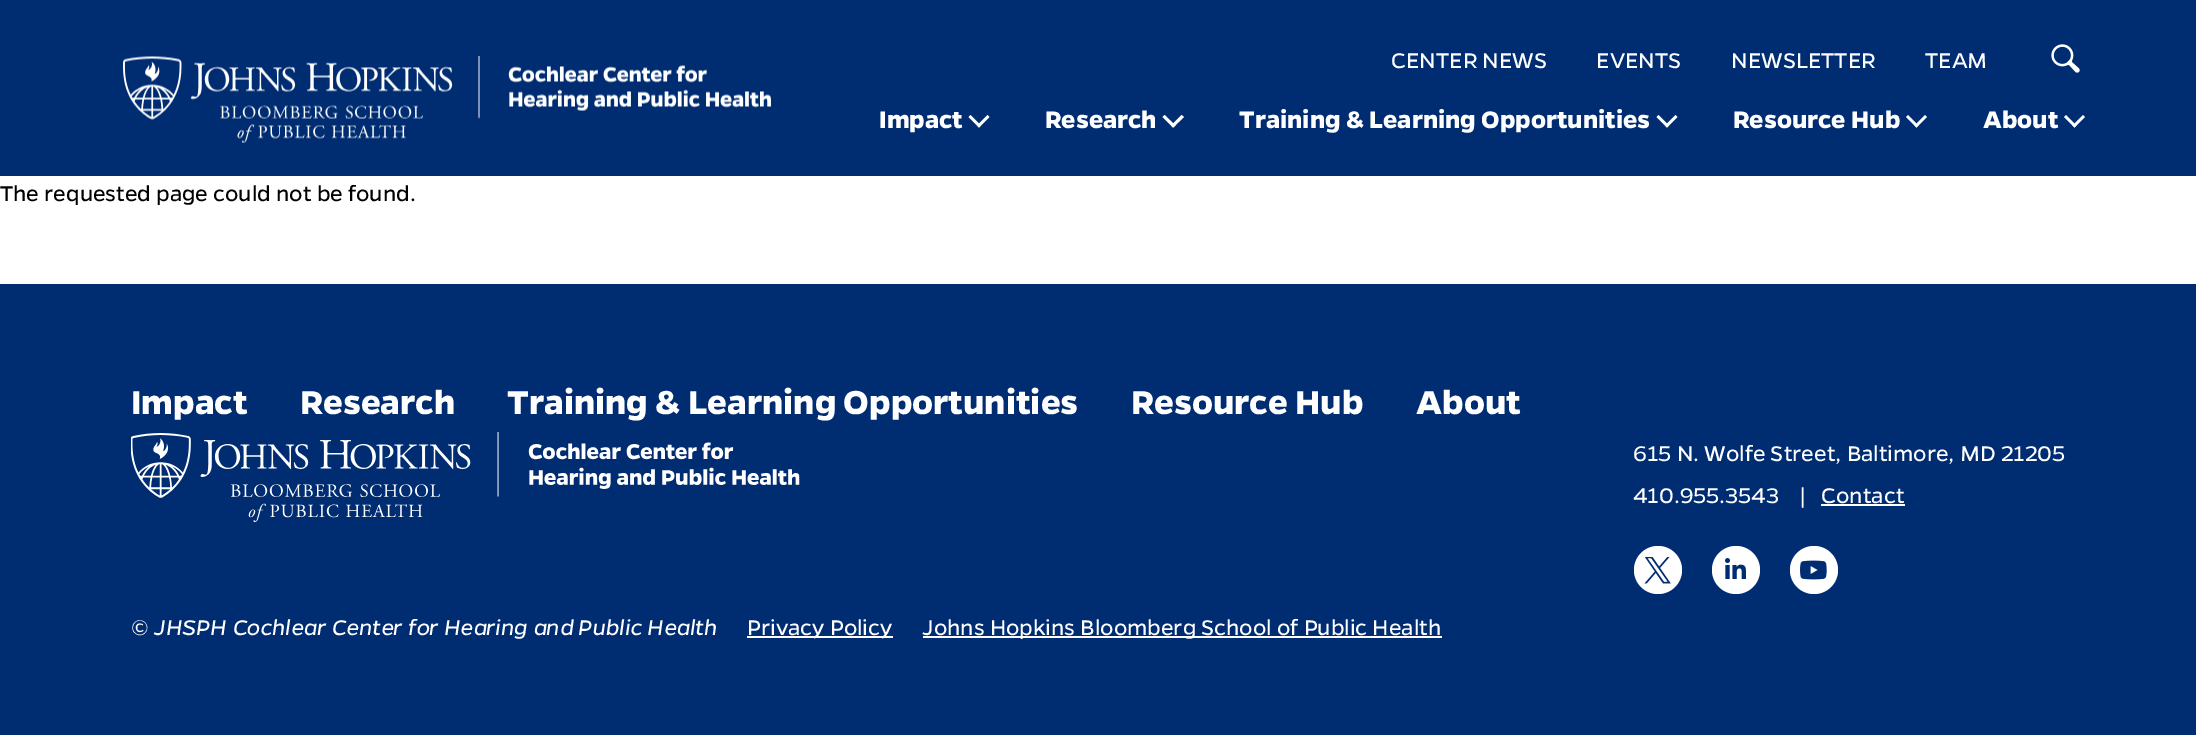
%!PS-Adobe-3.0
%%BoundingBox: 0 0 2196 735
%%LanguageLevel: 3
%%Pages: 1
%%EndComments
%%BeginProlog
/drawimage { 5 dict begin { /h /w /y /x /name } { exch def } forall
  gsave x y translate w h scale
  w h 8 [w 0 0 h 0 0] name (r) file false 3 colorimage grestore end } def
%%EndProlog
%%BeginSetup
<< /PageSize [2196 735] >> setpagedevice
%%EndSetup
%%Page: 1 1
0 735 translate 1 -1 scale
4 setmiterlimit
1 setgray
0 0 2196 735 rectfill
0 0.176 0.447 setrgbcolor
0 0 2196 176 rectfill
(images/1.raw) 123 56 648 87 drawimage
(images/2.raw) 2051 44 29 29 drawimage
1 setgray
newpath 987.5 115 moveto 989.5 117 lineto 979 127.5 lineto 977 125.5 lineto closepath fill
newpath 970.5 115 moveto 981 125.5 lineto 979 127.5 lineto 968.5 117 lineto closepath fill
newpath 1181.5 115 moveto 1184 117 lineto 1173 127.5 lineto 1171 125.5 lineto closepath fill
newpath 1164.5 115 moveto 1175.5 125.5 lineto 1173 127.5 lineto 1162.5 117 lineto closepath fill
newpath 1675.5 115 moveto 1677.5 117 lineto 1667 127.5 lineto 1665 125.5 lineto closepath fill
newpath 1658.5 115 moveto 1669 125.5 lineto 1667 127.5 lineto 1656.5 117 lineto closepath fill
newpath 1925 115 moveto 1927 117 lineto 1916.5 127.5 lineto 1914.5 125.5 lineto closepath fill
newpath 1908 115 moveto 1918.5 125.5 lineto 1916.5 127.5 lineto 1906 117 lineto closepath fill
newpath 2083 115 moveto 2085 117 lineto 2074.5 127.5 lineto 2072.5 125.5 lineto closepath fill
newpath 2066 115 moveto 2076.5 125.5 lineto 2074.5 127.5 lineto 2064 117 lineto closepath fill
0 0.176 0.447 setrgbcolor
0 284 2196 451 rectfill
(images/3.raw) 131 432 669 90 drawimage
1 setgray
1821 504 84 2 rectfill
newpath 1658 570 24 0 360 arc closepath fill
(images/4.raw) 1644 557 27 27 drawimage
newpath 1736 570 24 0 360 arc closepath fill
(images/5.raw) 1725 558 21 21 drawimage
newpath 1814 570 24 0 360 arc closepath fill
(images/6.raw) 1800 560 27 20 drawimage
747 636 146 2 rectfill
923 636 519 2 rectfill
/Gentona-Regular [24 0 0 -24 0 0] selectfont
1391 68 moveto (CENTER NEWS) show
1596 68 moveto (EVENTS) show
1731 68 moveto (NEWSLETTER) show
1925 68 moveto (TEAM) show
/Gentona-Bold [27 0 0 -27 0 0] selectfont
879 128 moveto (Impact) show
1045 128 moveto (Research) show
1239 128 moveto (Training & Learning Opportunities) show
1733 128 moveto (Resource Hub) show
1983 128 moveto (About) show
/Gentona-Regular [24 0 0 -24 0 0] selectfont
0 setgray
0 201 moveto (The requested page could not be found.) show
/Gentona-Bold [37.5 0 0 -37.5 0 0] selectfont
1 setgray
131 414 moveto (Impact) show
300 414 moveto (Research) show
507 414 moveto (Training & Learning Opportunities) show
1131 414 moveto (Resource Hub) show
1416 414 moveto (About) show
/Gentona-Regular [24 0 0 -24 0 0] selectfont
1633 461 moveto (615 N. Wolfe Street, Baltimore, MD 21205) show
1633 503 moveto (410.955.3543) show
1799 503 moveto (|) show
1821 503 moveto (Contact) show
131 635 moveto (©) show
/Gentona-Italic [24 0 0 -24 0 0] selectfont
154 635 moveto (JHSPH Cochlear Center for Hearing and Public Health) show
/Gentona-Regular [24 0 0 -24 0 0] selectfont
747 635 moveto (Privacy Policy) show
922 635 moveto (Johns Hopkins Bloomberg School of Public Health) show
showpage
%%EOF
